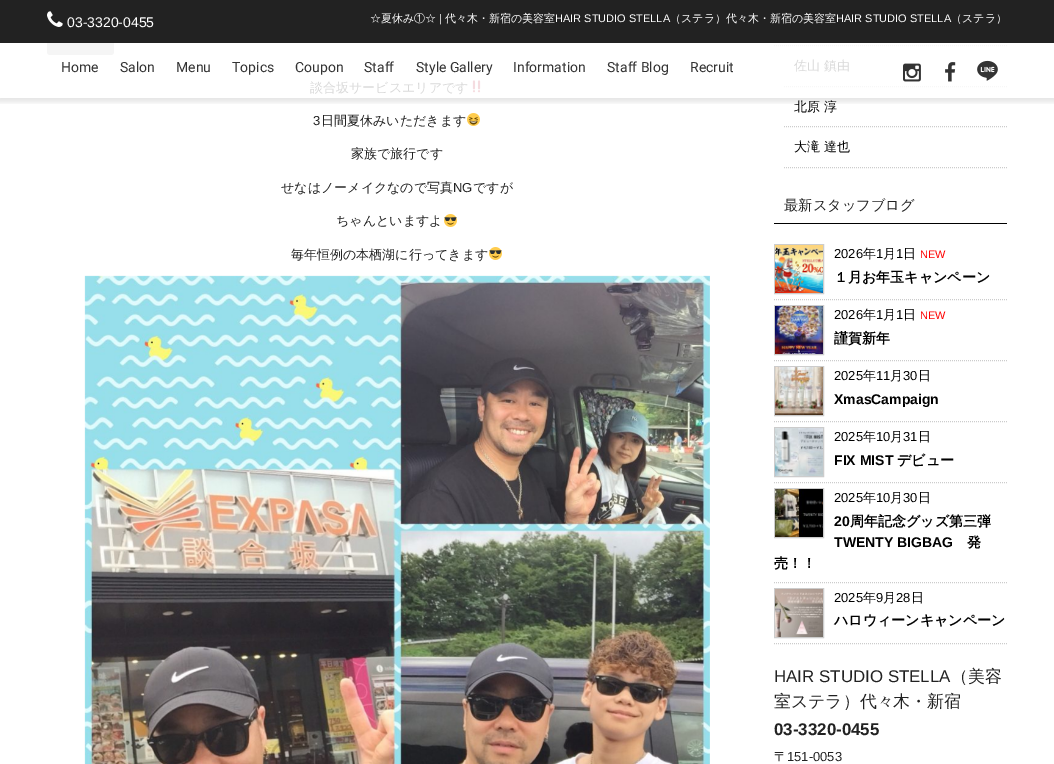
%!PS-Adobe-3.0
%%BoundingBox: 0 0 1054 764
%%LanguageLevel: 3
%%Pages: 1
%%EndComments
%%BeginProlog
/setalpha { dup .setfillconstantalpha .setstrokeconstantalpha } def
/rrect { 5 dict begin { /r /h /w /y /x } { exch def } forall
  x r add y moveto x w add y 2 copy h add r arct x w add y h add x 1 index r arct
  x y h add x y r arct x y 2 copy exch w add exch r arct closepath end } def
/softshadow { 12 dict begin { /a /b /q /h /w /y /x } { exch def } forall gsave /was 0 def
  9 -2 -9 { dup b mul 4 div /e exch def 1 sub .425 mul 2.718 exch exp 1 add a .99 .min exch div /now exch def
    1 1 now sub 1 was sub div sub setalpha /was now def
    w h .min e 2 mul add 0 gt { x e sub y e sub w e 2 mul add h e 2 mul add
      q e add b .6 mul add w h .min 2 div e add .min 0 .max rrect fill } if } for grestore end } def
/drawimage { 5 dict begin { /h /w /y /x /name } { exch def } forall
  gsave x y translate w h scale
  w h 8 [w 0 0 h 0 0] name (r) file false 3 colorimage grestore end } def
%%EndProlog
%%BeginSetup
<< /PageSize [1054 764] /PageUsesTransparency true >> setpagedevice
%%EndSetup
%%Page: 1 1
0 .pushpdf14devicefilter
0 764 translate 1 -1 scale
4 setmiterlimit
1 setgray
0 0 1054 764 rectfill
0.961 setgray
47 33 67 22 3 rrect fill
(images/5.raw) 472 80 9 13 drawimage
0.969 setgray
[1 1] 0 setdash
newpath 774 45.5 moveto 1007 45.5 lineto stroke
newpath 784 86.5 moveto 1007 86.5 lineto stroke
gsave
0 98 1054 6 rectclip
0 setgray
-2 0 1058 102 0 2.5 0.1 softshadow
grestore
0.133 setgray
0 0 1054 43 rectfill
(images/1.raw) 47 11 16 16 drawimage
(images/2.raw) 903 63 18 19 drawimage
(images/3.raw) 945 62 11 20 drawimage
(images/4.raw) 977 60 21 21 drawimage
(images/6.raw) 467 113 13 13 drawimage
(images/7.raw) 444 214 13 13 drawimage
(images/7.raw) 489 247 13 13 drawimage
(images/8.raw) 84 275 626 489 drawimage
0.8 setgray
newpath 784 126.5 moveto 1007 126.5 lineto stroke
newpath 784 167.5 moveto 1007 167.5 lineto stroke
0 setgray
774 223 233 1 rectfill
0.8 setgray
newpath 774 299.5 moveto 1007 299.5 lineto stroke
[] 0 setdash
774.5 244.5 49 49 rectstroke
(images/9.raw) 775 245 48 48 drawimage
[1 1] 0 setdash
newpath 774 360.5 moveto 1007 360.5 lineto stroke
[] 0 setdash
774.5 305.5 49 49 rectstroke
(images/10.raw) 775 306 48 48 drawimage
[1 1] 0 setdash
newpath 774 421.5 moveto 1007 421.5 lineto stroke
[] 0 setdash
774.5 366.5 49 49 rectstroke
(images/11.raw) 775 367 48 48 drawimage
[1 1] 0 setdash
newpath 774 482.5 moveto 1007 482.5 lineto stroke
[] 0 setdash
774.5 427.5 49 49 rectstroke
(images/12.raw) 775 428 48 48 drawimage
[1 1] 0 setdash
newpath 774 582.5 moveto 1007 582.5 lineto stroke
[] 0 setdash
774.5 488.5 49 49 rectstroke
(images/13.raw) 775 489 48 48 drawimage
[1 1] 0 setdash
newpath 774 643.5 moveto 1007 643.5 lineto stroke
[] 0 setdash
774.5 588.5 49 49 rectstroke
(images/14.raw) 775 589 48 48 drawimage
/LiberationSans-Regular [14 0 0 -14 0 0] selectfont
1 setgray
67 27 moveto (03-3320-0455) show
/WenQuanYiZenHei-Medium [11 0 0 -11 0 0] selectfont
370 22 moveto (☆夏休み①☆) show
/LiberationSans-Regular [11 0 0 -11 0 0] selectfont
439 22 moveto (|) show
/WenQuanYiZenHei-Medium [11 0 0 -11 0 0] selectfont
445 22 moveto (代々木・新宿の美容室) show
/LiberationSans-Regular [11 0 0 -11 0 0] selectfont
555 22 moveto (HAIR STUDIO STELLA) show
/WenQuanYiZenHei-Medium [11 0 0 -11 0 0] selectfont
670 22 moveto (（ステラ）代々木・新宿の美容室) show
/LiberationSans-Regular [11 0 0 -11 0 0] selectfont
836 22 moveto (HAIR STUDIO STELLA) show
/WenQuanYiZenHei-Medium [11 0 0 -11 0 0] selectfont
951 22 moveto (（ステラ）) show
/Roboto-Regular [14 0 0 -14 0 0] selectfont
0.2 setgray
61 72 moveto (Home) show
120 72 moveto (Salon) show
176 72 moveto (Menu) show
232 72 moveto (Topics) show
295 72 moveto (Coupon) show
364 72 moveto (Staff) show
416 72 moveto (Style Gallery) show
513 72 moveto (Information) show
607 72 moveto (Staff Blog) show
690 72 moveto (Recruit) show
/WenQuanYiZenHei-Medium [13 0 0 -13 0 0] selectfont
0.851 setgray
310 92 moveto (談合坂サービスエリアです) show
/LiberationSans-Regular [13 0 0 -13 0 0] selectfont
0.133 setgray
313 125 moveto (3) show
/WenQuanYiZenHei-Medium [13 0 0 -13 0 0] selectfont
321 125 moveto (日間夏休みいただきます) show
351 158 moveto (家族で旅行です) show
281 192 moveto (せなはノーメイクなので写真) show
/LiberationSans-Regular [13 0 0 -13 0 0] selectfont
453 192 moveto (NG) show
/WenQuanYiZenHei-Medium [13 0 0 -13 0 0] selectfont
473 192 moveto (ですが) show
336 225 moveto (ちゃんといますよ) show
291 259 moveto (毎年恒例の本栖湖に行ってきます) show
0.851 setgray
794 70 moveto (佐山 鎮由) show
0 setgray
794 111 moveto (北原 淳) show
794 151 moveto (大滝 達也) show
/WenQuanYiZenHei-Medium [14.25 0 0 -14.25 0 0] selectfont
0.133 setgray
784 210 moveto (最新スタッフブログ) show
/LiberationSans-Regular [13 0 0 -13 0 0] selectfont
0 setgray
834 258 moveto (2026) show
/WenQuanYiZenHei-Medium [13 0 0 -13 0 0] selectfont
863 258 moveto (年) show
/LiberationSans-Regular [13 0 0 -13 0 0] selectfont
876 258 moveto (1) show
/WenQuanYiZenHei-Medium [13 0 0 -13 0 0] selectfont
883 258 moveto (月) show
/LiberationSans-Regular [13 0 0 -13 0 0] selectfont
896 258 moveto (1) show
/WenQuanYiZenHei-Medium [13 0 0 -13 0 0] selectfont
903 258 moveto (日) show
/LiberationSans-Regular [11 0 0 -11 0 0] selectfont
1 0 0 setrgbcolor
920 258 moveto (NEW) show
/WenQuanYiZenHei-Bold [14 0 0 -14 0 0] selectfont
0 setgray
834 282 moveto (１月お年玉キャンペーン) show
/LiberationSans-Regular [13 0 0 -13 0 0] selectfont
834 319 moveto (2026) show
/WenQuanYiZenHei-Medium [13 0 0 -13 0 0] selectfont
863 319 moveto (年) show
/LiberationSans-Regular [13 0 0 -13 0 0] selectfont
876 319 moveto (1) show
/WenQuanYiZenHei-Medium [13 0 0 -13 0 0] selectfont
883 319 moveto (月) show
/LiberationSans-Regular [13 0 0 -13 0 0] selectfont
896 319 moveto (1) show
/WenQuanYiZenHei-Medium [13 0 0 -13 0 0] selectfont
903 319 moveto (日) show
/LiberationSans-Regular [11 0 0 -11 0 0] selectfont
1 0 0 setrgbcolor
920 319 moveto (NEW) show
/WenQuanYiZenHei-Bold [14 0 0 -14 0 0] selectfont
0 setgray
834 343 moveto (謹賀新年) show
/LiberationSans-Regular [13 0 0 -13 0 0] selectfont
834 380 moveto (2025) show
/WenQuanYiZenHei-Medium [13 0 0 -13 0 0] selectfont
863 380 moveto (年) show
/LiberationSans-Regular [13 0 0 -13 0 0] selectfont
876 380 moveto (11) show
/WenQuanYiZenHei-Medium [13 0 0 -13 0 0] selectfont
890 380 moveto (月) show
/LiberationSans-Regular [13 0 0 -13 0 0] selectfont
903 380 moveto (30) show
/WenQuanYiZenHei-Medium [13 0 0 -13 0 0] selectfont
918 380 moveto (日) show
/LiberationSans-Bold [14 0 0 -14 0 0] selectfont
834 404 moveto (XmasCampaign) show
/LiberationSans-Regular [13 0 0 -13 0 0] selectfont
834 441 moveto (2025) show
/WenQuanYiZenHei-Medium [13 0 0 -13 0 0] selectfont
863 441 moveto (年) show
/LiberationSans-Regular [13 0 0 -13 0 0] selectfont
876 441 moveto (10) show
/WenQuanYiZenHei-Medium [13 0 0 -13 0 0] selectfont
890 441 moveto (月) show
/LiberationSans-Regular [13 0 0 -13 0 0] selectfont
903 441 moveto (31) show
/WenQuanYiZenHei-Medium [13 0 0 -13 0 0] selectfont
918 441 moveto (日) show
/LiberationSans-Bold [14 0 0 -14 0 0] selectfont
834 465 moveto (FIX MIST) show
/WenQuanYiZenHei-Bold [14 0 0 -14 0 0] selectfont
897 465 moveto (デビュー) show
/LiberationSans-Regular [13 0 0 -13 0 0] selectfont
834 502 moveto (2025) show
/WenQuanYiZenHei-Medium [13 0 0 -13 0 0] selectfont
863 502 moveto (年) show
/LiberationSans-Regular [13 0 0 -13 0 0] selectfont
876 502 moveto (10) show
/WenQuanYiZenHei-Medium [13 0 0 -13 0 0] selectfont
890 502 moveto (月) show
/LiberationSans-Regular [13 0 0 -13 0 0] selectfont
903 502 moveto (30) show
/WenQuanYiZenHei-Medium [13 0 0 -13 0 0] selectfont
918 502 moveto (日) show
/LiberationSans-Bold [14 0 0 -14 0 0] selectfont
834 526 moveto (20) show
/WenQuanYiZenHei-Bold [14 0 0 -14 0 0] selectfont
850 526 moveto (周年記念グッズ第三弾) show
/LiberationSans-Bold [14 0 0 -14 0 0] selectfont
834 547 moveto (TWENTY BIGBAG) show
/WenQuanYiZenHei-Bold [14 0 0 -14 0 0] selectfont
967 547 moveto (発) show
774 568 moveto (売！！) show
/LiberationSans-Regular [13 0 0 -13 0 0] selectfont
834 602 moveto (2025) show
/WenQuanYiZenHei-Medium [13 0 0 -13 0 0] selectfont
863 602 moveto (年) show
/LiberationSans-Regular [13 0 0 -13 0 0] selectfont
876 602 moveto (9) show
/WenQuanYiZenHei-Medium [13 0 0 -13 0 0] selectfont
883 602 moveto (月) show
/LiberationSans-Regular [13 0 0 -13 0 0] selectfont
896 602 moveto (28) show
/WenQuanYiZenHei-Medium [13 0 0 -13 0 0] selectfont
911 602 moveto (日) show
/WenQuanYiZenHei-Bold [14 0 0 -14 0 0] selectfont
834 625 moveto (ハロウィーンキャンペーン) show
/LiberationSans-Regular [16.9 0 0 -16.9 0 0] selectfont
0.133 setgray
774 682 moveto (HAIR STUDIO STELLA) show
/WenQuanYiZenHei-Medium [16.9 0 0 -16.9 0 0] selectfont
951 682 moveto (（美容) show
774 707 moveto (室ステラ）代々木・新宿) show
/LiberationSans-Bold [16.9 0 0 -16.9 0 0] selectfont
774 735 moveto (03-3320-0455) show
/WenQuanYiZenHei-Medium [13 0 0 -13 0 0] selectfont
774 761 moveto (〒) show
/LiberationSans-Regular [13 0 0 -13 0 0] selectfont
787 761 moveto (151-0053) show
.poppdf14devicefilter showpage
%%EOF
